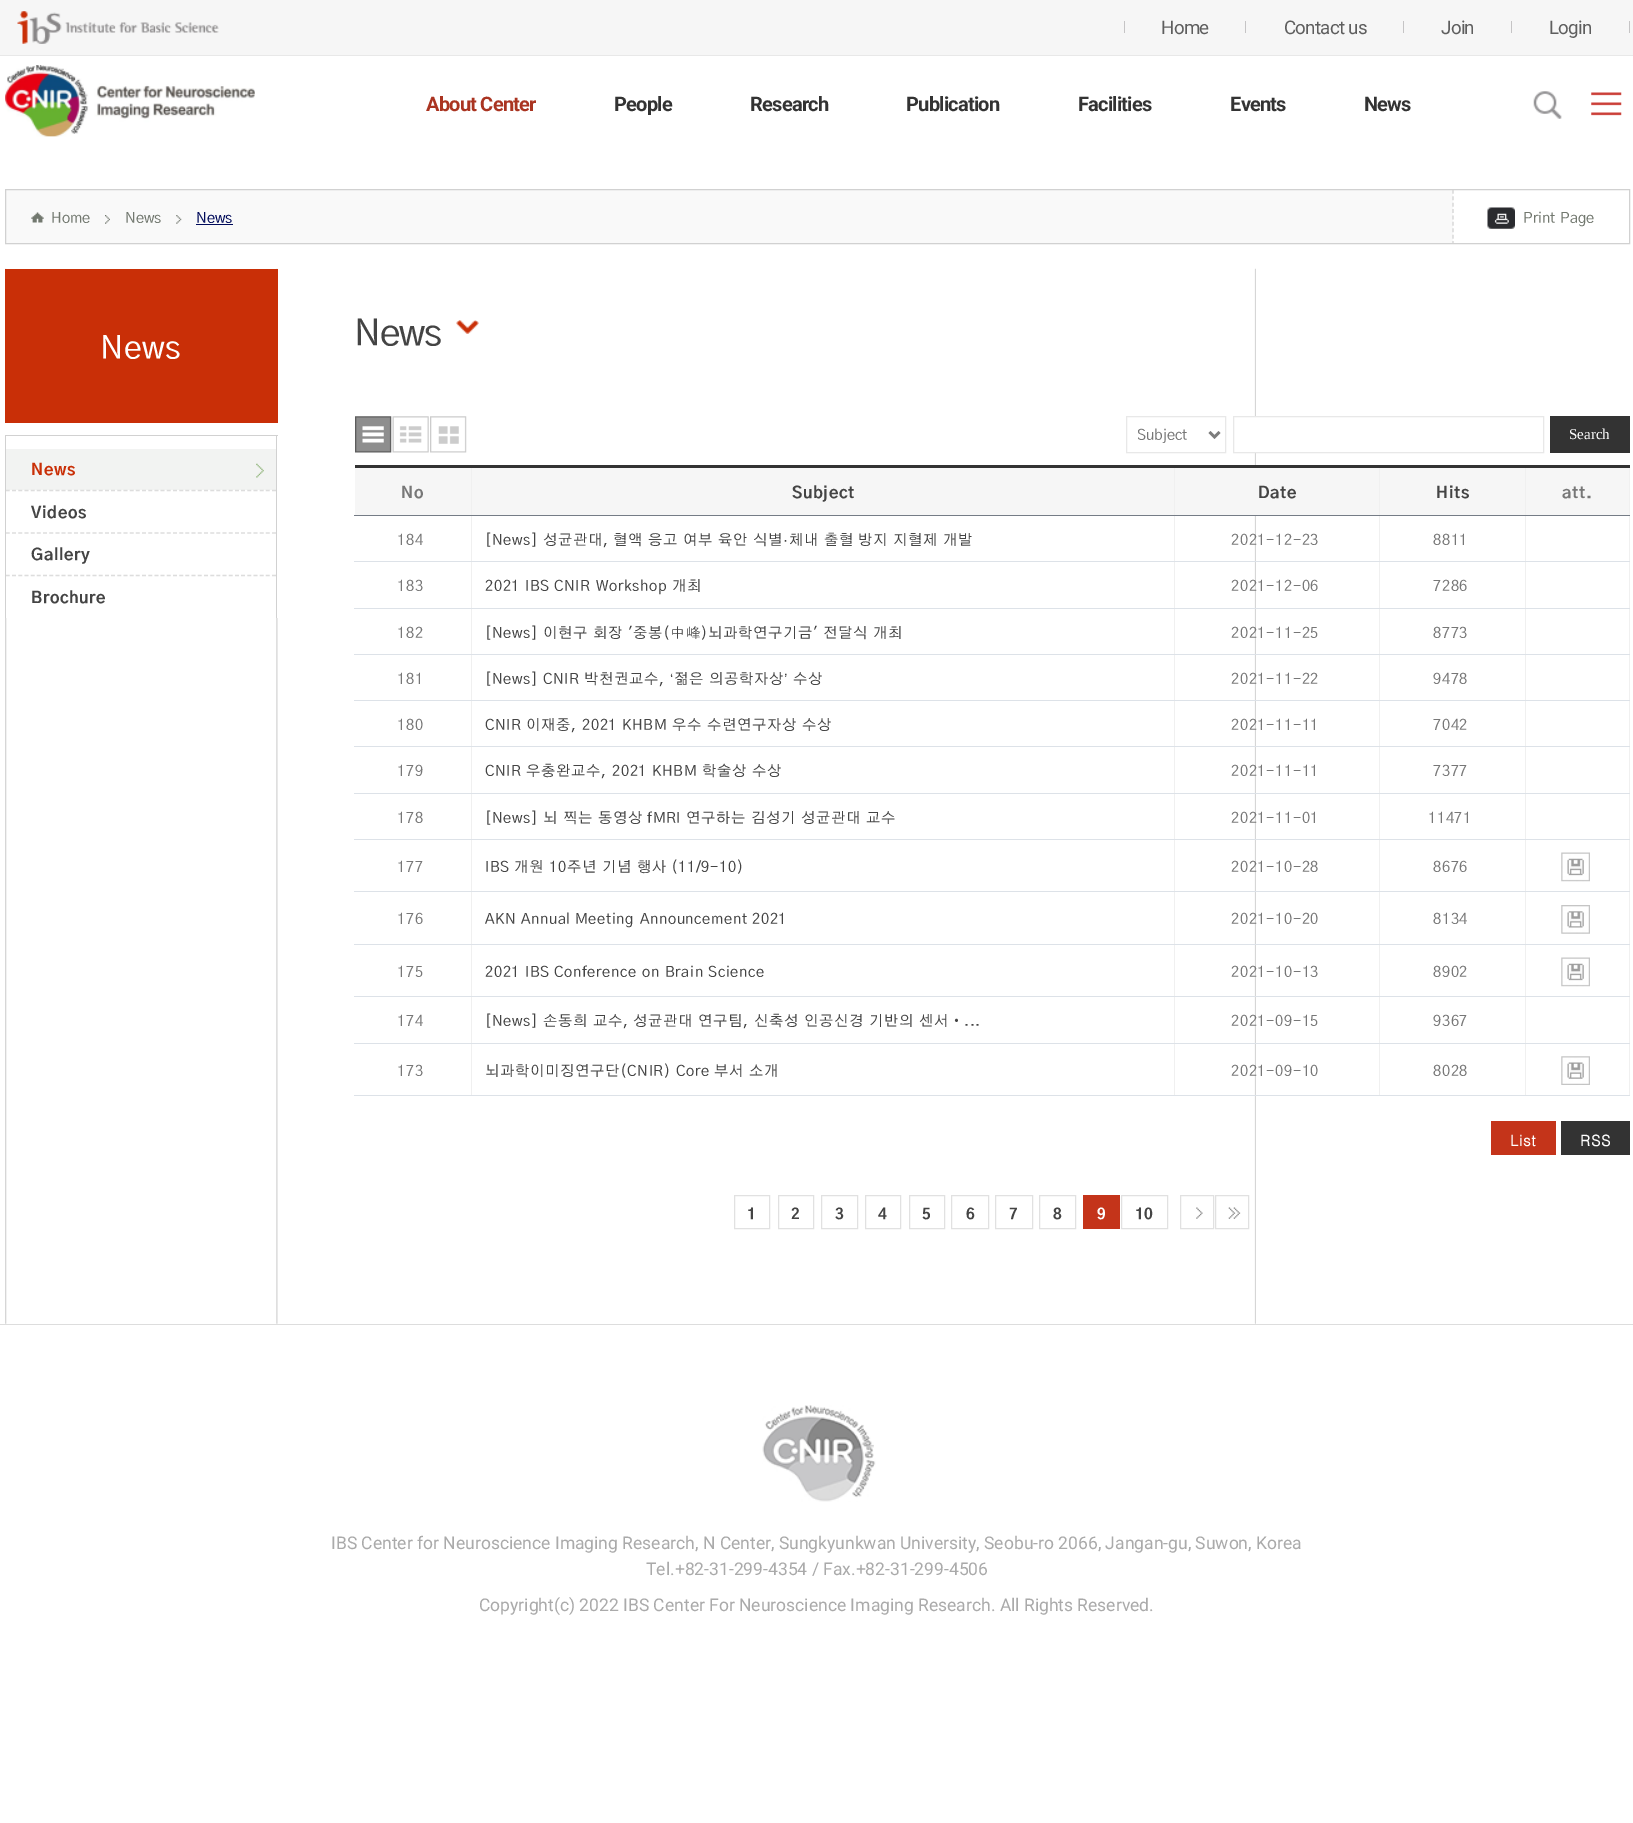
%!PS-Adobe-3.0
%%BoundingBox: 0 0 1633 1823
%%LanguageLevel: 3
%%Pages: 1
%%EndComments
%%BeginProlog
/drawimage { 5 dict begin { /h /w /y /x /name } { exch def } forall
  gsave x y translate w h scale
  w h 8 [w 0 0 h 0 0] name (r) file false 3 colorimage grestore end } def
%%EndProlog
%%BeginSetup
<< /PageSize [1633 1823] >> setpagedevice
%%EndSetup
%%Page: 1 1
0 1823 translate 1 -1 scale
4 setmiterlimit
1 setgray
0 0 1633 1823 rectfill
0.965 setgray
0 0 1633 55 rectfill
0.91 setgray
0 55 1633 1 rectfill
(images/1.raw) 17 11 202 33 drawimage
0.773 0.769 0.773 setrgbcolor
1124 21 1 12 rectfill
1245 21 1 12 rectfill
1403 21 1 12 rectfill
1511 21 1 12 rectfill
1629 21 1 12 rectfill
(images/2.raw) 5 65 250 72 drawimage
(images/3.raw) 1533 91 29 28 drawimage
(images/4.raw) 1591 92 31 24 drawimage
0.976 setgray
6 190 1447 53 rectfill
0.82 setgray
5.5 189.5 1624 54 rectstroke
(images/5.raw) 31 212 13 11 drawimage
(images/6.raw) 105 215 5 9 drawimage
(images/7.raw) 176 215 6 9 drawimage
0 0.039 0.353 setrgbcolor
196 224 37 1 rectfill
(images/8.raw) 1487 207 28 22 drawimage
gsave
6 190 1623 53 rectclip
0.847 setgray
1.2 setlinewidth
[3.75 2.65] 0 setdash
newpath 1453 190 moveto 1453 245 lineto stroke
grestore
(images/9.raw) 5 268 1251 1056 drawimage
0.788 0.184 0.027 setrgbcolor
5 269 273 154 rectfill
1 setgray
5 423 273 195 rectfill
0.82 setgray
5 435 273 1 rectfill
276 435 1 183 rectfill
5 435 1 183 rectfill
0.949 0.953 0.949 setrgbcolor
6 449 270 41 rectfill
(images/10.raw) 256 463 8 15 drawimage
0.867 setgray
1.2 setlinewidth
[3.75 2.44] 0 setdash
newpath 6 490.5 moveto 276 490.5 lineto stroke
newpath 6 533 moveto 276 533 lineto stroke
newpath 6 575.5 moveto 276 575.5 lineto stroke
(images/11.raw) 456 320 23 14 drawimage
(images/12.raw) 355 416 37 37 drawimage
(images/13.raw) 392 416 37 37 drawimage
(images/14.raw) 430 416 37 37 drawimage
0.91 setgray
1 setlinewidth
[] 0 setdash
1126.5 416.5 99 36 rectstroke
0.486 setgray
2.5 setlinewidth
newpath 1209.5 432 moveto 1214.5 437 lineto 1219.5 432 lineto stroke
1 setgray
1254 417 2 35 rectfill
0.91 setgray
1 setlinewidth
1233.5 416.5 310 36 rectstroke
0.2 setgray
1550 416 80 37 rectfill
0.941 setgray
1629 466 1 630 rectfill
0.867 0.886 0.91 setrgbcolor
1525 1095 105 1 rectfill
0.941 setgray
1525 1043 1 53 rectfill
0.867 0.886 0.91 setrgbcolor
1525 1043 105 1 rectfill
0.941 setgray
1525 996 1 48 rectfill
0.867 0.886 0.91 setrgbcolor
1525 996 105 1 rectfill
0.941 setgray
1525 944 1 54 rectfill
0.867 0.886 0.91 setrgbcolor
1525 944 105 1 rectfill
0.941 setgray
1525 891 1 54 rectfill
0.867 0.886 0.91 setrgbcolor
1525 891 105 1 rectfill
0.941 setgray
1525 839 1 54 rectfill
0.867 0.886 0.91 setrgbcolor
1525 839 105 1 rectfill
0.941 setgray
1525 793 1 47 rectfill
0.867 0.886 0.91 setrgbcolor
1525 793 105 1 rectfill
0.941 setgray
1525 746 1 48 rectfill
0.867 0.886 0.91 setrgbcolor
1525 746 105 1 rectfill
0.941 setgray
1525 700 1 48 rectfill
0.867 0.886 0.91 setrgbcolor
1525 700 105 1 rectfill
0.941 setgray
1525 654 1 47 rectfill
0.867 0.886 0.91 setrgbcolor
1525 654 105 1 rectfill
0.941 setgray
1525 608 1 47 rectfill
0.867 0.886 0.91 setrgbcolor
1525 608 105 1 rectfill
0.941 setgray
1525 561 1 48 rectfill
0.867 0.886 0.91 setrgbcolor
1525 561 105 1 rectfill
0.941 setgray
1525 515 1 48 rectfill
0.459 0.486 0.525 setrgbcolor
1525 515 105 1 rectfill
0.941 setgray
1525 466 1 50 rectfill
0.867 0.886 0.91 setrgbcolor
1379 1095 147 1 rectfill
0.941 setgray
1379 1043 1 53 rectfill
0.867 0.886 0.91 setrgbcolor
1379 1043 147 1 rectfill
0.941 setgray
1379 996 1 48 rectfill
0.867 0.886 0.91 setrgbcolor
1379 996 147 1 rectfill
0.941 setgray
1379 944 1 54 rectfill
0.867 0.886 0.91 setrgbcolor
1379 944 147 1 rectfill
0.941 setgray
1379 891 1 54 rectfill
0.867 0.886 0.91 setrgbcolor
1379 891 147 1 rectfill
0.941 setgray
1379 839 1 54 rectfill
0.867 0.886 0.91 setrgbcolor
1379 839 147 1 rectfill
0.941 setgray
1379 793 1 47 rectfill
0.867 0.886 0.91 setrgbcolor
1379 793 147 1 rectfill
0.941 setgray
1379 746 1 48 rectfill
0.867 0.886 0.91 setrgbcolor
1379 746 147 1 rectfill
0.941 setgray
1379 700 1 48 rectfill
0.867 0.886 0.91 setrgbcolor
1379 700 147 1 rectfill
0.941 setgray
1379 654 1 47 rectfill
0.867 0.886 0.91 setrgbcolor
1379 654 147 1 rectfill
0.941 setgray
1379 608 1 47 rectfill
0.867 0.886 0.91 setrgbcolor
1379 608 147 1 rectfill
0.941 setgray
1379 561 1 48 rectfill
0.867 0.886 0.91 setrgbcolor
1379 561 147 1 rectfill
0.941 setgray
1379 515 1 48 rectfill
0.459 0.486 0.525 setrgbcolor
1379 515 147 1 rectfill
0.941 setgray
1379 466 1 50 rectfill
0.867 0.886 0.91 setrgbcolor
1174 1095 206 1 rectfill
0.941 setgray
1174 1043 1 53 rectfill
0.867 0.886 0.91 setrgbcolor
1174 1043 206 1 rectfill
0.941 setgray
1174 996 1 48 rectfill
0.867 0.886 0.91 setrgbcolor
1174 996 206 1 rectfill
0.941 setgray
1174 944 1 54 rectfill
0.867 0.886 0.91 setrgbcolor
1174 944 206 1 rectfill
0.941 setgray
1174 891 1 54 rectfill
0.867 0.886 0.91 setrgbcolor
1174 891 206 1 rectfill
0.941 setgray
1174 839 1 54 rectfill
0.867 0.886 0.91 setrgbcolor
1174 839 206 1 rectfill
0.941 setgray
1174 793 1 47 rectfill
0.867 0.886 0.91 setrgbcolor
1174 793 206 1 rectfill
0.941 setgray
1174 746 1 48 rectfill
0.867 0.886 0.91 setrgbcolor
1174 746 206 1 rectfill
0.941 setgray
1174 700 1 48 rectfill
0.867 0.886 0.91 setrgbcolor
1174 700 206 1 rectfill
0.941 setgray
1174 654 1 47 rectfill
0.867 0.886 0.91 setrgbcolor
1174 654 206 1 rectfill
0.941 setgray
1174 608 1 47 rectfill
0.867 0.886 0.91 setrgbcolor
1174 608 206 1 rectfill
0.941 setgray
1174 561 1 48 rectfill
0.867 0.886 0.91 setrgbcolor
1174 561 206 1 rectfill
0.941 setgray
1174 515 1 48 rectfill
0.459 0.486 0.525 setrgbcolor
1174 515 206 1 rectfill
0.941 setgray
1174 466 1 50 rectfill
0.867 0.886 0.91 setrgbcolor
471 1095 704 1 rectfill
0.941 setgray
471 1043 1 53 rectfill
0.867 0.886 0.91 setrgbcolor
471 1043 704 1 rectfill
0.941 setgray
471 996 1 48 rectfill
0.867 0.886 0.91 setrgbcolor
471 996 704 1 rectfill
0.941 setgray
471 944 1 54 rectfill
0.867 0.886 0.91 setrgbcolor
471 944 704 1 rectfill
0.941 setgray
471 891 1 54 rectfill
0.867 0.886 0.91 setrgbcolor
471 891 704 1 rectfill
0.941 setgray
471 839 1 54 rectfill
0.867 0.886 0.91 setrgbcolor
471 839 704 1 rectfill
0.941 setgray
471 793 1 47 rectfill
0.867 0.886 0.91 setrgbcolor
471 793 704 1 rectfill
0.941 setgray
471 746 1 48 rectfill
0.867 0.886 0.91 setrgbcolor
471 746 704 1 rectfill
0.941 setgray
471 700 1 48 rectfill
0.867 0.886 0.91 setrgbcolor
471 700 704 1 rectfill
0.941 setgray
471 654 1 47 rectfill
0.867 0.886 0.91 setrgbcolor
471 654 704 1 rectfill
0.941 setgray
471 608 1 47 rectfill
0.867 0.886 0.91 setrgbcolor
471 608 704 1 rectfill
0.941 setgray
471 561 1 48 rectfill
0.867 0.886 0.91 setrgbcolor
471 561 704 1 rectfill
0.941 setgray
471 515 1 48 rectfill
0.459 0.486 0.525 setrgbcolor
471 515 704 1 rectfill
0.941 setgray
471 466 1 50 rectfill
0.2 setgray
355 465 1275 3 rectfill
0.965 setgray
355 468 116 47 rectfill
0.459 0.486 0.525 setrgbcolor
354 515 119 1 rectfill
0.965 setgray
472 468 702 47 rectfill
1175 468 204 47 rectfill
1380 468 145 47 rectfill
1526 468 103 47 rectfill
0.867 0.886 0.91 setrgbcolor
354 561 119 1 rectfill
354 608 119 1 rectfill
354 654 119 1 rectfill
354 700 119 1 rectfill
354 746 119 1 rectfill
354 793 119 1 rectfill
354 839 119 1 rectfill
354 891 119 1 rectfill
(images/15.raw) 1561 852 29 30 drawimage
354 944 119 1 rectfill
(images/16.raw) 1561 905 29 29 drawimage
354 996 119 1 rectfill
(images/15.raw) 1561 957 29 30 drawimage
354 1043 119 1 rectfill
354 1095 119 1 rectfill
(images/17.raw) 1561 1056 29 29 drawimage
0.769 0.204 0.102 setrgbcolor
1491 1121 65 34 rectfill
0.2 setgray
1561 1121 69 34 rectfill
0.882 setgray
734.5 1195.5 35 33 rectstroke
778.5 1195.5 35 33 rectstroke
821.5 1195.5 36 33 rectstroke
865.5 1195.5 35 33 rectstroke
909.5 1195.5 35 33 rectstroke
951.5 1195.5 37 33 rectstroke
995.5 1195.5 37 33 rectstroke
1039.5 1195.5 36 33 rectstroke
0.769 0.204 0.102 setrgbcolor
1083 1195 37 34 rectfill
0.882 setgray
1121.5 1195.5 46 33 rectstroke
(images/18.raw) 1196 1207 7 12 drawimage
1180.5 1195.5 33 33 rectstroke
(images/19.raw) 1228 1207 13 12 drawimage
1215.5 1195.5 33 33 rectstroke
0.867 setgray
0 1324 1633 1 rectfill
(images/20.raw) 762 1405 114 97 drawimage
/Roboto-Regular [18.75 0 0 -18.75 0 0] selectfont
0.369 setgray
1161 34 moveto -0.75 0 (Home) ashow
1284 34 moveto -0.75 0 (Contact us) ashow
1441 34 moveto -0.75 0 (Join) ashow
1549 34 moveto -0.75 0 (Login) ashow
/Roboto-Bold [20 0 0 -20 0 0] selectfont
0.667 0.204 0.129 setrgbcolor
426 111 moveto -0.75 0 (About Center) ashow
0.2 setgray
614 111 moveto -0.75 0 (People) ashow
750 111 moveto -0.75 0 (Research) ashow
906 111 moveto -0.75 0 (Publication) ashow
1078 111 moveto -0.75 0 (Facilities) ashow
1230 111 moveto -0.75 0 (Events) ashow
1364 111 moveto -0.75 0 (News) ashow
/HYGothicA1-Regular [15 0 0 -15 0 0] selectfont
0.447 0.471 0.435 setrgbcolor
51 223 moveto (Home) show
125 223 moveto (News) show
0 0.039 0.353 setrgbcolor
196 223 moveto (News) show
0.447 0.471 0.435 setrgbcolor
1523 223 moveto (Print) show
1560 223 moveto (Page) show
/HYGothicA1-Regular [32.5 0 0 -32.5 0 0] selectfont
1 setgray
100 359 moveto 0.6 0 (News) ashow
/HYGothicA1-SemiBold [16.25 0 0 -16.25 0 0] selectfont
0.788 0.184 0.027 setrgbcolor
31 475 moveto 0.6 0 (News) ashow
0.267 setgray
31 518 moveto 0.6 0 (Videos) ashow
31 560 moveto 0.6 0 (Gallery) ashow
31 603 moveto 0.6 0 (Brochure) ashow
/HYGothicA1-Regular [37.5 0 0 -37.5 0 0] selectfont
354 346 moveto -1 0 (News) ashow
gsave
1138 423 62 23 rectclip
/HYGothicA1-Regular [15 0 0 -15 0 0] selectfont
0.467 setgray
1137 440 moveto (Subject) show
grestore
/LiberationSerif-Regular [15 0 0 -15 0 0] selectfont
1 setgray
1569 439 moveto (Search) show
/HYGothicA1-SemiBold [16.25 0 0 -16.25 0 0] selectfont
0.467 setgray
401 498 moveto 0.6 0 (No) ashow
0.267 setgray
792 498 moveto 0.6 0 (Subject) ashow
1258 498 moveto 0.6 0 (Date) ashow
1436 498 moveto 0.6 0 (Hits) ashow
0.467 setgray
1562 498 moveto 0.6 0 (att.) ashow
/HYGothicA1-Regular [15 0 0 -15 0 0] selectfont
397 545 moveto 0.6 0 (184) ashow
0.267 setgray
485 545 moveto 0.6 0 ([News]) ashow
543 545 moveto 0.6 0 (성균관대,) ashow
613 545 moveto 0.6 0 (혈액) ashow
648 545 moveto 0.6 0 (응고) ashow
683 545 moveto 0.6 0 (여부) ashow
718 545 moveto 0.6 0 (육안) ashow
753 545 moveto 0.6 0 (식별) ashow
/LiberationSans-Regular [15 0 0 -15 0 0] selectfont
783 545 moveto 0.6 0 (·) ashow
/HYGothicA1-Regular [15 0 0 -15 0 0] selectfont
789 545 moveto 0.6 0 (체내) ashow
824 545 moveto 0.6 0 (출혈) ashow
858 545 moveto 0.6 0 (방지) ashow
893 545 moveto 0.6 0 (지혈제) ashow
943 545 moveto 0.6 0 (개발) ashow
0.467 setgray
1231 545 moveto 0.6 0 (2021-12-23) ashow
1433 545 moveto 0.6 0 (8811) ashow
397 591 moveto 0.6 0 (183) ashow
0.267 setgray
485 591 moveto 0.6 0 (2021) ashow
525 591 moveto 0.6 0 (IBS) ashow
554 591 moveto 0.6 0 (CNIR) ashow
596 591 moveto 0.6 0 (Workshop) ashow
672 591 moveto 0.6 0 (개최) ashow
0.467 setgray
1231 591 moveto 0.6 0 (2021-12-06) ashow
1433 591 moveto 0.6 0 (7286) ashow
397 638 moveto 0.6 0 (182) ashow
0.267 setgray
485 638 moveto 0.6 0 ([News]) ashow
543 638 moveto 0.6 0 (이현구) ashow
593 638 moveto 0.6 0 (회장) ashow
628 638 moveto 0.6 0 ('중봉\() ashow
/Dotum-Regular [15 0 0 -15 0 0] selectfont
670 638 moveto 0.6 0 (中峰) ashow
/HYGothicA1-Regular [15 0 0 -15 0 0] selectfont
701 638 moveto 0.6 0 (\)뇌과학연구기금') ashow
823 638 moveto 0.6 0 (전달식) ashow
873 638 moveto 0.6 0 (개최) ashow
0.467 setgray
1231 638 moveto 0.6 0 (2021-11-25) ashow
1433 638 moveto 0.6 0 (8773) ashow
397 684 moveto 0.6 0 (181) ashow
0.267 setgray
485 684 moveto 0.6 0 ([News]) ashow
543 684 moveto 0.6 0 (CNIR) ashow
584 684 moveto 0.6 0 (박천권교수,) ashow
/LiberationSans-Regular [15 0 0 -15 0 0] selectfont
670 684 moveto 0.6 0 (‘) ashow
/HYGothicA1-Regular [15 0 0 -15 0 0] selectfont
674 684 moveto 0.6 0 (젊은) ashow
709 684 moveto 0.6 0 (의공학자상) ashow
/LiberationSans-Regular [15 0 0 -15 0 0] selectfont
784 684 moveto 0.6 0 (’) ashow
/HYGothicA1-Regular [15 0 0 -15 0 0] selectfont
793 684 moveto 0.6 0 (수상) ashow
0.467 setgray
1231 684 moveto 0.6 0 (2021-11-22) ashow
1433 684 moveto 0.6 0 (9478) ashow
397 730 moveto 0.6 0 (180) ashow
0.267 setgray
485 730 moveto 0.6 0 (CNIR) ashow
526 730 moveto 0.6 0 (이재중,) ashow
582 730 moveto 0.6 0 (2021) ashow
622 730 moveto 0.6 0 (KHBM) ashow
672 730 moveto 0.6 0 (우수) ashow
707 730 moveto 0.6 0 (수련연구자상) ashow
802 730 moveto 0.6 0 (수상) ashow
0.467 setgray
1231 730 moveto 0.6 0 (2021-11-11) ashow
1433 730 moveto 0.6 0 (7042) ashow
397 776 moveto 0.6 0 (179) ashow
0.267 setgray
485 776 moveto 0.6 0 (CNIR) ashow
526 776 moveto 0.6 0 (우충완교수,) ashow
612 776 moveto 0.6 0 (2021) ashow
652 776 moveto 0.6 0 (KHBM) ashow
702 776 moveto 0.6 0 (학술상) ashow
752 776 moveto 0.6 0 (수상) ashow
0.467 setgray
1231 776 moveto 0.6 0 (2021-11-11) ashow
1433 776 moveto 0.6 0 (7377) ashow
397 823 moveto 0.6 0 (178) ashow
0.267 setgray
485 823 moveto 0.6 0 ([News]) ashow
543 823 moveto 0.6 0 (뇌) ashow
563 823 moveto 0.6 0 (찍는) ashow
598 823 moveto 0.6 0 (동영상) ashow
647 823 moveto 0.6 0 (fMRI) ashow
686 823 moveto 0.6 0 (연구하는) ashow
751 823 moveto 0.6 0 (김성기) ashow
801 823 moveto 0.6 0 (성균관대) ashow
866 823 moveto 0.6 0 (교수) ashow
0.467 setgray
1231 823 moveto 0.6 0 (2021-11-01) ashow
1428 823 moveto 0.6 0 (11471) ashow
397 872 moveto 0.6 0 (177) ashow
0.267 setgray
485 872 moveto 0.6 0 (IBS) ashow
514 872 moveto 0.6 0 (개원) ashow
549 872 moveto 0.6 0 (10주년) ashow
602 872 moveto 0.6 0 (기념) ashow
637 872 moveto 0.6 0 (행사) ashow
671 872 moveto 0.6 0 (\(11/9-10\)) ashow
0.467 setgray
1231 872 moveto 0.6 0 (2021-10-28) ashow
1433 872 moveto 0.6 0 (8676) ashow
397 924 moveto 0.6 0 (176) ashow
0.267 setgray
485 924 moveto 0.6 0 (AKN) ashow
521 924 moveto 0.6 0 (Annual) ashow
575 924 moveto 0.6 0 (Meeting) ashow
640 924 moveto 0.6 0 (Announcement) ashow
752 924 moveto 0.6 0 (2021) ashow
0.467 setgray
1231 924 moveto 0.6 0 (2021-10-20) ashow
1433 924 moveto 0.6 0 (8134) ashow
397 977 moveto 0.6 0 (175) ashow
0.267 setgray
485 977 moveto 0.6 0 (2021) ashow
525 977 moveto 0.6 0 (IBS) ashow
554 977 moveto 0.6 0 (Conference) ashow
642 977 moveto 0.6 0 (on) ashow
665 977 moveto 0.6 0 (Brain) ashow
708 977 moveto 0.6 0 (Science) ashow
0.467 setgray
1231 977 moveto 0.6 0 (2021-10-13) ashow
1433 977 moveto 0.6 0 (8902) ashow
397 1026 moveto 0.6 0 (174) ashow
0.267 setgray
485 1026 moveto 0.6 0 ([News]) ashow
543 1026 moveto 0.6 0 (손동희) ashow
593 1026 moveto 0.6 0 (교수,) ashow
633 1026 moveto 0.6 0 (성균관대) ashow
698 1026 moveto 0.6 0 (연구팀,) ashow
754 1026 moveto 0.6 0 (신축성) ashow
804 1026 moveto 0.6 0 (인공신경) ashow
869 1026 moveto 0.6 0 (기반의) ashow
919 1026 moveto 0.6 0 (센서) ashow
/NotoSansCJKKR-Regular [15 0 0 -15 0 0] selectfont
949 1026 moveto 0.6 0 (‧) ashow
/HYGothicA1-Regular [15 0 0 -15 0 0] selectfont
964 1026 moveto 0.6 0 (...) ashow
0.467 setgray
1231 1026 moveto 0.6 0 (2021-09-15) ashow
1433 1026 moveto 0.6 0 (9367) ashow
397 1076 moveto 0.6 0 (173) ashow
0.267 setgray
485 1076 moveto 0.6 0 (뇌과학이미징연구단\(CNIR\)) ashow
676 1076 moveto 0.6 0 (Core) ashow
714 1076 moveto 0.6 0 (부서) ashow
749 1076 moveto 0.6 0 (소개) ashow
0.467 setgray
1231 1076 moveto 0.6 0 (2021-09-10) ashow
1433 1076 moveto 0.6 0 (8028) ashow
/Dotum-Bold [15 0 0 -15 0 0] selectfont
1 setgray
1510 1146 moveto 0.6 0 (List) ashow
1580 1146 moveto 0.6 0 (RSS) ashow
/HYGothicA1-SemiBold [15 0 0 -15 0 0] selectfont
0.267 setgray
747 1219 moveto 0.6 0 (1) ashow
791 1219 moveto 0.6 0 (2) ashow
835 1219 moveto 0.6 0 (3) ashow
878 1219 moveto 0.6 0 (4) ashow
922 1219 moveto 0.6 0 (5) ashow
966 1219 moveto 0.6 0 (6) ashow
1009 1219 moveto 0.6 0 (7) ashow
1053 1219 moveto 0.6 0 (8) ashow
1 setgray
1097 1219 moveto 0.6 0 (9) ashow
0.267 setgray
1135 1219 moveto 0.6 0 (10) ashow
/Roboto-Regular [17.5 0 0 -17.5 0 0] selectfont
0.667 setgray
331 1549 moveto (IBS Center for Neuroscience Imaging Research, N Center, Sungkyunkwan University, Seobu-ro 2066, Jangan-gu, Suwon, Korea) show
646 1575 moveto (Tel.+82-31-299-4354 / Fax.+82-31-299-4506) show
479 1611 moveto (Copyright\(c\) 2022 IBS Center For Neuroscience Imaging Research. All Rights Reserved.) show
showpage
%%EOF
